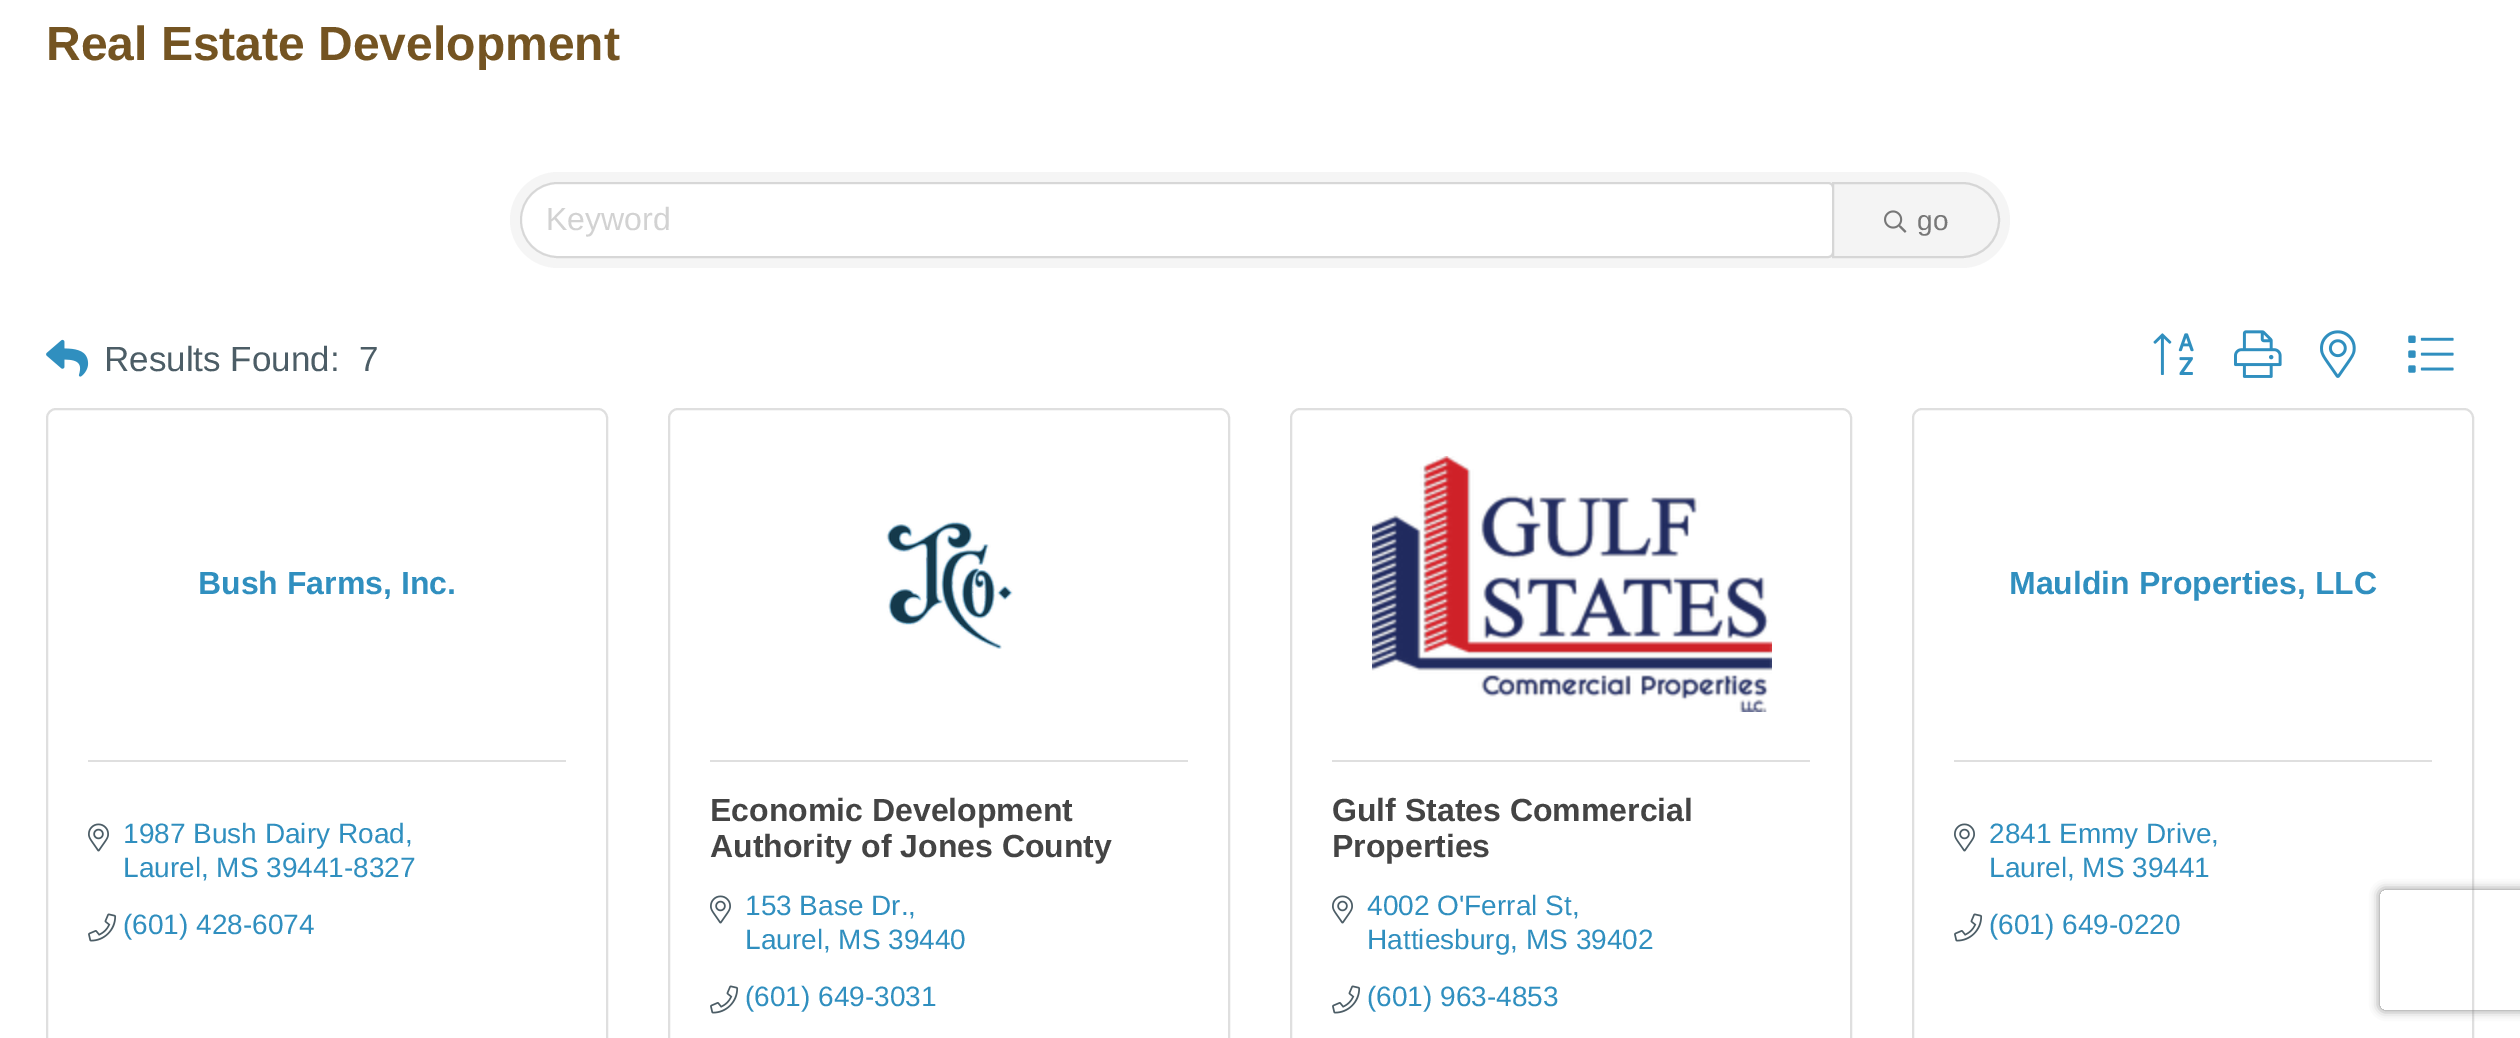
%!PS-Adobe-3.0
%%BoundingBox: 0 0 2520 1038
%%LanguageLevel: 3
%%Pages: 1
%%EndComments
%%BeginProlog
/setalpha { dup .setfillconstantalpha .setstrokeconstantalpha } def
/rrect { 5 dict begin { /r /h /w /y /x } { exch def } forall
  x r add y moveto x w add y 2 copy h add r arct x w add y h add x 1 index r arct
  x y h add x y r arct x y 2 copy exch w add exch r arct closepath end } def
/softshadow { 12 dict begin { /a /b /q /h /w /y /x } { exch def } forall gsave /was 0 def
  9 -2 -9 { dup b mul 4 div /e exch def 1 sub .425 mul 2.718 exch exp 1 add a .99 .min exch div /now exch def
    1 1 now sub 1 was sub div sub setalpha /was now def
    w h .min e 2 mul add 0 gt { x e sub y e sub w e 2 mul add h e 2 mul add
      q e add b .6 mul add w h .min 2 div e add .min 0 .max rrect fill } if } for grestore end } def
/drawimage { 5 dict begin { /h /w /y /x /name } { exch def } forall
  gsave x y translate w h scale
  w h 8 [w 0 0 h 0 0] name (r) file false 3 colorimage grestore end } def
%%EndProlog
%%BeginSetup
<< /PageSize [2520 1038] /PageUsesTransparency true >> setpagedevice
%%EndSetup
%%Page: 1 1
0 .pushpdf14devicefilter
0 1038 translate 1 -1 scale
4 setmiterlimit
1 setgray
0 0 2520 1038 rectfill
0.961 setgray
510 172 1500 96 48 rrect fill
1 setgray
newpath 558 184 moveto 1828 184 lineto 1830 184 1832 186 1832 188 curveto 1832 252 lineto 1832 254 1830 256 1828 256 curveto 558 256 lineto 538 256 522 240 522 220 curveto 522 200 538 184 558 184 curveto closepath fill
0.12 setalpha
0 setgray
2 setlinewidth
newpath 558 183 moveto 1828 183 lineto 1831 183 1833 185 1833 188 curveto 1833 252 lineto 1833 255 1831 257 1828 257 curveto 558 257 lineto 537.5 257 521 240.5 521 220 curveto 521 199.5 537.5 183 558 183 curveto closepath stroke
1 setalpha
0.957 setgray
newpath 1833 183 moveto 1962 183 lineto 1982.5 183 1999 199.5 1999 220 curveto 1999 240.5 1982.5 257 1962 257 curveto 1833 257 lineto closepath gsave fill grestore
0.839 setgray
stroke
(images/1.raw) 1884 210 23 23 drawimage
(images/2.raw) 46 339 43 38 drawimage
(images/3.raw) 2153 333 41 42 drawimage
(images/4.raw) 2234 330 48 48 drawimage
(images/5.raw) 2320 330 36 48 drawimage
(images/6.raw) 2408 335 46 38 drawimage
0.875 setgray
47 409 560 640 9 rrect stroke
88 760 478 2 rectfill
(images/7.raw) 88 823 21 29 drawimage
(images/8.raw) 88 913 29 29 drawimage
669 409 560 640 9 rrect stroke
(images/9.raw) 886 521 127 128 drawimage
710 760 478 2 rectfill
(images/7.raw) 710 895 21 29 drawimage
(images/8.raw) 710 985 29 29 drawimage
1291 409 560 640 9 rrect stroke
(images/10.raw) 1372 456 400 256 drawimage
1332 760 478 2 rectfill
(images/7.raw) 1332 895 21 29 drawimage
(images/8.raw) 1332 985 29 29 drawimage
1913 409 560 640 9 rrect stroke
1954 760 478 2 rectfill
(images/7.raw) 1954 823 21 29 drawimage
(images/8.raw) 1954 913 29 29 drawimage
gsave
newpath 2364 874 moveto 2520 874 lineto 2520 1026 lineto 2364 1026 lineto closepath 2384 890 moveto 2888 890 lineto 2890 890 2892 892 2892 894 curveto 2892 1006 lineto 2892 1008 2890 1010 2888 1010 curveto 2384 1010 lineto 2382 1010 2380 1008 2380 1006 curveto 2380 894 lineto 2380 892 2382 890 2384 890 curveto closepath eoclip newpath
0.502 setgray
2380 890 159 120 4 5 1 softshadow
grestore
/LiberationSans-Bold [48 0 0 -48 0 0] selectfont
0.455 0.329 0.133 setrgbcolor
46 60 moveto (Real Estate Development) show
/LiberationSans-Regular [32 0 0 -32 0 0] selectfont
0.824 setgray
546 230 moveto (Keyword) show
/LiberationSans-Regular [28 0 0 -28 0 0] selectfont
0.467 setgray
1917 230 moveto (go) show
/LiberationSans-Regular [35 0 0 -35 0 0] selectfont
0.298 0.365 0.4 setrgbcolor
104 371 moveto (Results Found:) show
359 371 moveto (7) show
/LiberationSans-Bold [32 0 0 -32 0 0] selectfont
0.188 0.561 0.749 setrgbcolor
198 594 moveto (Bush Farms, Inc.) show
/LiberationSans-Regular [28 0 0 -28 0 0] selectfont
123 843 moveto (1987 Bush Dairy Road,) show
123 877 moveto (Laurel, MS 39441-8327) show
123 934 moveto (\(601\) 428-6074) show
/LiberationSans-Bold [32 0 0 -32 0 0] selectfont
0.267 setgray
710 821 moveto (Economic Development) show
710 857 moveto (Authority of Jones County) show
/LiberationSans-Regular [28 0 0 -28 0 0] selectfont
0.188 0.561 0.749 setrgbcolor
745 915 moveto (153 Base Dr.,) show
745 949 moveto (Laurel, MS 39440) show
745 1006 moveto (\(601\) 649-3031) show
/LiberationSans-Bold [32 0 0 -32 0 0] selectfont
0.267 setgray
1332 821 moveto (Gulf States Commercial) show
1332 857 moveto (Properties) show
/LiberationSans-Regular [28 0 0 -28 0 0] selectfont
0.188 0.561 0.749 setrgbcolor
1367 915 moveto (4002 O'Ferral St,) show
1367 949 moveto (Hattiesburg, MS 39402) show
1367 1006 moveto (\(601\) 963-4853) show
/LiberationSans-Bold [32 0 0 -32 0 0] selectfont
2009 594 moveto (Mauldin Properties, LLC) show
/LiberationSans-Regular [28 0 0 -28 0 0] selectfont
1989 843 moveto (2841 Emmy Drive,) show
1989 877 moveto (Laurel, MS 39441) show
1989 934 moveto (\(601\) 649-0220) show
.poppdf14devicefilter showpage
%%EOF
